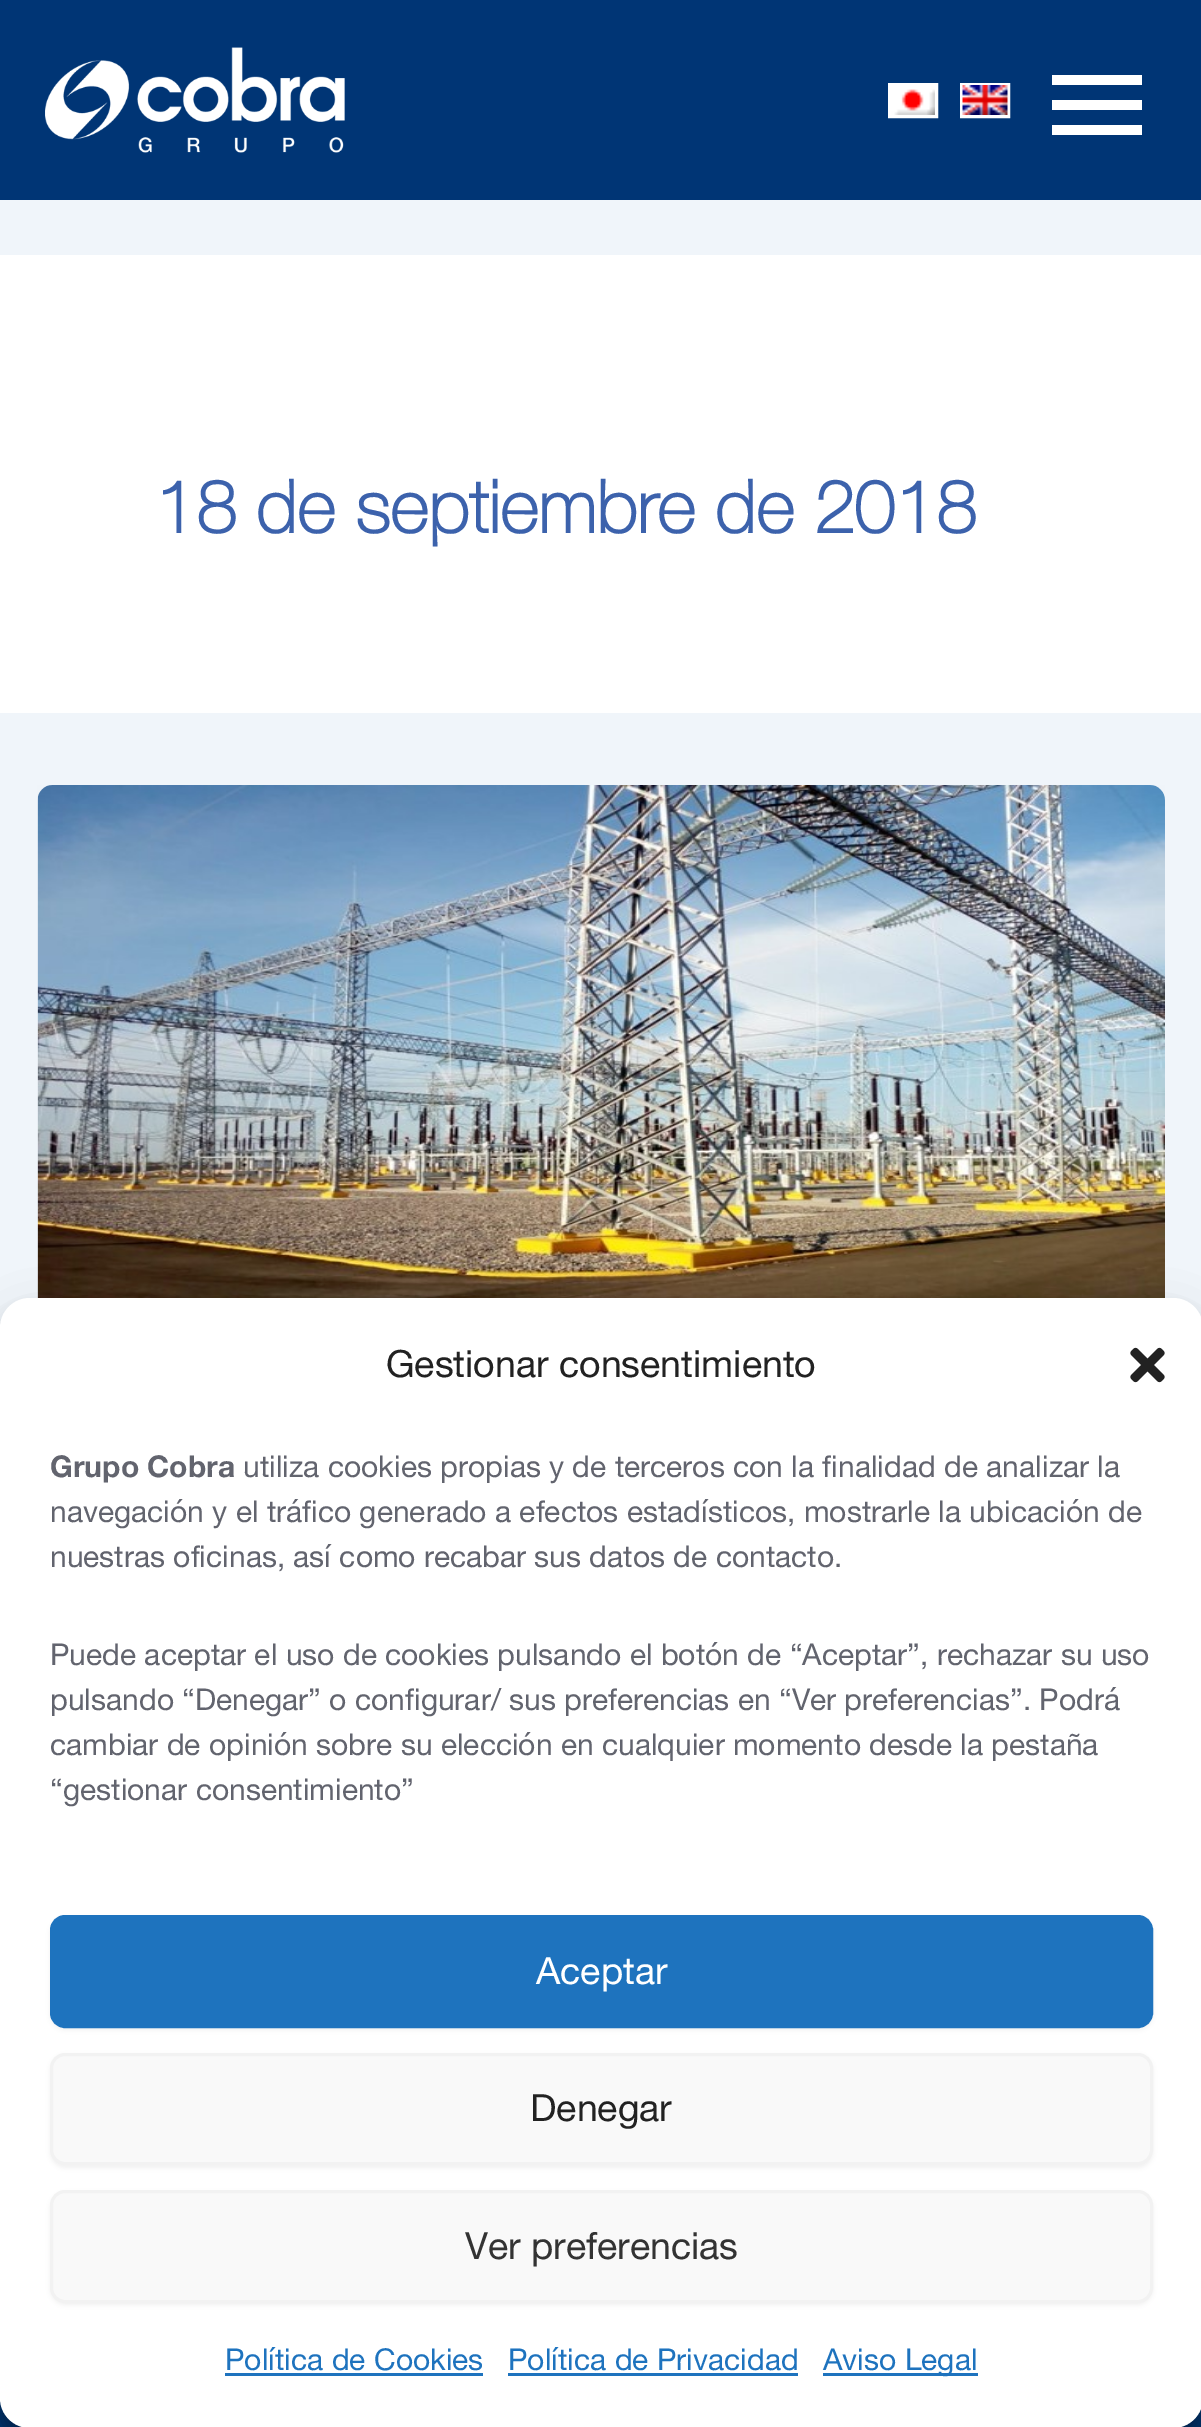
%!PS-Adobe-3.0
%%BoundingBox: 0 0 1201 2427
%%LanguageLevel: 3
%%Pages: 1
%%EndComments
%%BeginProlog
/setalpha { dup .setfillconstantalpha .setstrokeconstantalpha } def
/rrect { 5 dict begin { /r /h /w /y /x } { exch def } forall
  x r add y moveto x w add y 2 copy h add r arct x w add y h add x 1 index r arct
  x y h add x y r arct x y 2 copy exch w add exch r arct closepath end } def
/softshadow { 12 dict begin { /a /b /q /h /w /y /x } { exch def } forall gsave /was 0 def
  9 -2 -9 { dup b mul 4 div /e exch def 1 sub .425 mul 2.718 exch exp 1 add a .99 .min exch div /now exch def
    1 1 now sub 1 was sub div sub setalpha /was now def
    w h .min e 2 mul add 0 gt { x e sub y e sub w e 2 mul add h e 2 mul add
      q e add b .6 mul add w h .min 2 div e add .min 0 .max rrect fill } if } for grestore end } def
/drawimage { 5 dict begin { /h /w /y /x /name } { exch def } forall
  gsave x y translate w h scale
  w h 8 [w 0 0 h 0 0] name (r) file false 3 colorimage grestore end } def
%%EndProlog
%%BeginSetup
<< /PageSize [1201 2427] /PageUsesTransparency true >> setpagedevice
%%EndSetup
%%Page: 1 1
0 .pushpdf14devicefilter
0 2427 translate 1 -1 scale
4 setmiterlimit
0.941 0.961 0.98 setrgbcolor
0 0 1201 2427 rectfill
0 0.208 0.459 setrgbcolor
0 0 1201 200 rectfill
(images/1.raw) 45 47 300 106 drawimage
1 setgray
3 setlinewidth
889.5 84.5 47 32 rectstroke
(images/2.raw) 891 86 44 29 drawimage
961.5 84.5 47 32 rectstroke
(images/3.raw) 962 85 46 30 drawimage
newpath 1052 75 moveto 1142 75 lineto 1142 85 lineto 1052 85 lineto 1052 75 lineto 1052 100 moveto 1142 100 lineto 1142 110 lineto 1052 110 lineto 1052 100 lineto 1052 125 moveto 1142 125 lineto 1142 135 lineto 1052 135 lineto closepath fill
0 255 1201 458 rectfill
(images/4.raw) 37 785 1128 513 drawimage
0 0.208 0.459 setrgbcolor
0 2398 1201 29 rectfill
0 setgray
0 1313 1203 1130 30 7.5 0.23 softshadow
0 1323 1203 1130 30 25 0.19 softshadow
1 setgray
0 1298 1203 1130 30 rrect fill
(images/5.raw) 1130 1347 35 36 drawimage
0 setgray
50 1918 1103 112 15 2.5 0.05 softshadow
0.118 0.451 0.745 setrgbcolor
51.5 1916.5 1100 110 13.5 rrect gsave fill grestore
stroke
0 setgray
50 2055 1103 113 15 2.5 0.05 softshadow
0.976 setgray
51.5 2054.5 1100 109 13.5 rrect gsave fill grestore
0.949 setgray
stroke
0 setgray
50 2193 1103 112 15 2.5 0.05 softshadow
0.976 setgray
51.5 2191.5 1100 110 13.5 rrect gsave fill grestore
0.949 setgray
stroke
0.118 0.451 0.745 setrgbcolor
225 2373 258 3 rectfill
508 2373 290 3 rectfill
823 2373 155 3 rectfill
/HelveticaNeue-Bold [73 0 0 -73 0 0] selectfont
0.235 0.384 0.675 setrgbcolor
155 533 moveto (18 de septiembre de 2018) show
/HelveticaNeue-Regular [37.5 0 0 -37.5 0 0] selectfont
0.133 setgray
386 1377 moveto (Gestionar consentimiento) show
/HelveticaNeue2-Bold [30 0 0 -30 0 0] selectfont
0.384 0.392 0.431 setrgbcolor
50 1477 moveto (Grupo Cobra) show
/HelveticaNeue-Regular [30 0 0 -30 0 0] selectfont
243 1477 moveto (utiliza cookies propias y de terceros con la finalidad de analizar la) show
50 1522 moveto (navegación y el tráfico generado a efectos estadísticos, mostrarle la ubicación de) show
50 1567 moveto (nuestras oficinas, así como recabar sus datos de contacto.) show
50 1665 moveto (Puede aceptar el uso de cookies pulsando el botón de “Aceptar”, rechazar su uso) show
50 1710 moveto (pulsando “Denegar” o configurar/ sus preferencias en “Ver preferencias”. Podrá) show
50 1755 moveto (cambiar de opinión sobre su elección en cualquier momento desde la pestaña) show
50 1800 moveto (“gestionar consentimiento”) show
/HelveticaNeue-Regular [37.5 0 0 -37.5 0 0] selectfont
1 setgray
536 1984 moveto (Aceptar) show
0.133 setgray
530 2121 moveto (Denegar) show
0.2 setgray
465 2259 moveto (Ver preferencias) show
/HelveticaNeue-Regular [30 0 0 -30 0 0] selectfont
0.118 0.451 0.745 setrgbcolor
225 2370 moveto (Política de Cookies) show
508 2370 moveto (Política de Privacidad) show
823 2370 moveto (Aviso Legal) show
.poppdf14devicefilter showpage
%%EOF
